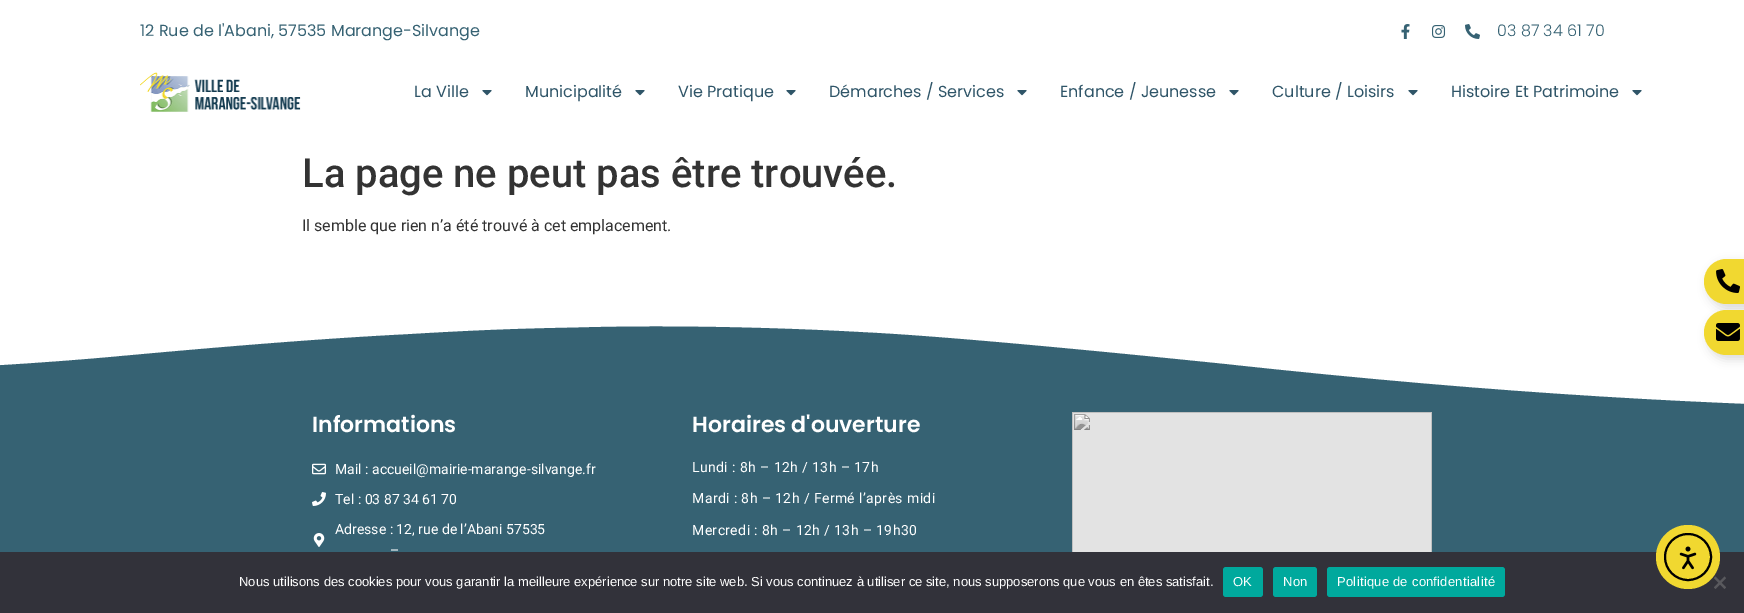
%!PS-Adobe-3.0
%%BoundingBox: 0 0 1744 613
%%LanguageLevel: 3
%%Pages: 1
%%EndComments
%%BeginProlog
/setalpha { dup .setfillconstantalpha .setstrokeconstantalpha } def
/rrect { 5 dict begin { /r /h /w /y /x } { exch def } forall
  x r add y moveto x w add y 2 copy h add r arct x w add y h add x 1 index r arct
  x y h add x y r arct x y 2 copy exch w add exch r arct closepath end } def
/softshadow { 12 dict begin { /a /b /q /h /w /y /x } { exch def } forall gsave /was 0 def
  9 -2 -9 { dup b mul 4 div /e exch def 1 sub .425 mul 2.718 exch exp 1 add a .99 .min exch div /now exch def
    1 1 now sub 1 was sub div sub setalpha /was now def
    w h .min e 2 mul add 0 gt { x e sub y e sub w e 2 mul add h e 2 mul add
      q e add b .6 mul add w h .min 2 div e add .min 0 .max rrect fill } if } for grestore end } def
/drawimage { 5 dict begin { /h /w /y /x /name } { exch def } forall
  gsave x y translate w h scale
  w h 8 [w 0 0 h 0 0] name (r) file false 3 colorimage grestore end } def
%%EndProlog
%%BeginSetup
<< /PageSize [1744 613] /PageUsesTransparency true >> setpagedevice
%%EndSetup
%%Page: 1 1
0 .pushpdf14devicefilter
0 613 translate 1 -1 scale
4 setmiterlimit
1 setgray
0 0 1744 613 rectfill
(images/1.raw) 1401 24 9 15 drawimage
(images/2.raw) 1432 25 14 13 drawimage
(images/3.raw) 1465 24 15 15 drawimage
(images/4.raw) 140 72 161 40 drawimage
(images/5.raw) 482 90 10 6 drawimage
(images/5.raw) 635 90 10 6 drawimage
(images/5.raw) 786 90 10 6 drawimage
(images/5.raw) 1017 90 10 6 drawimage
(images/5.raw) 1229 90 10 6 drawimage
(images/5.raw) 1408 90 10 6 drawimage
(images/5.raw) 1632 90 10 6 drawimage
0.212 0.384 0.451 setrgbcolor
0 326 1744 226 rectfill
1 setgray
newpath 589 327 moveto 671 325 775 327 863 332 curveto 948 336 1120 353 1227 364 curveto 1502 394 1712 405 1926 409 curveto 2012 411 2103 413 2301 407 curveto 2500 402 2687 384 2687 384 curveto 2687 321 lineto -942 321 lineto -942 349 lineto -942 349 -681 378 -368 376 curveto -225 376 -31 370 119 356 curveto 196 349 308 339 408 334 curveto 507 328 551 328 589 327 curveto closepath fill
0 setgray
1708 263 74 45 22.5 5 0.15 softshadow
0.945 0.847 0.188 setrgbcolor
newpath 1726.5 259 moveto 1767 259 lineto 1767 304 lineto 1726.5 304 lineto 1714 304 1704 294 1704 281.5 curveto 1704 269 1714 259 1726.5 259 curveto closepath fill
(images/6.raw) 1716 269 24 24 drawimage
0 setgray
1708 314 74 45 22.5 5 0.15 softshadow
0.945 0.847 0.188 setrgbcolor
newpath 1726.5 310 moveto 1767 310 lineto 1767 355 lineto 1726.5 355 lineto 1714 355 1704 345 1704 332.5 curveto 1704 320 1714 310 1726.5 310 curveto closepath fill
(images/7.raw) 1716 323 24 18 drawimage
(images/8.raw) 312 463 14 12 drawimage
(images/9.raw) 312 492 14 14 drawimage
(images/10.raw) 313 533 12 14 drawimage
(images/11.raw) 1072 412 360 140 drawimage
0.196 0.196 0.227 setrgbcolor
0 552 1744 61 rectfill
0.349 0.349 0.365 setrgbcolor
newpath 1724.5 576.5 moveto 1726 578 lineto 1715.5 589 lineto 1714 587.5 lineto closepath fill
newpath 1714 578 moveto 1715.5 576.5 lineto 1726 587.5 lineto 1724.5 589 lineto closepath fill
0.945 0.847 0.188 setrgbcolor
newpath 1688 557 32 0 360 arc closepath fill
0 setgray
2 setlinewidth
newpath 1688 557 23 0 360 arc closepath stroke
(images/12.raw) 1679 546 18 24 drawimage
0 0.663 0.616 setrgbcolor
1223 567 40 30 3 rrect fill
1273 567 44 30 3 rrect fill
1327 567 178 30 3 rrect fill
/Poppins-Regular [16 0 0 -16 0 0] selectfont
0.212 0.384 0.451 setrgbcolor
140 36 moveto (12 Rue de l'Abani, 57535 Marange-Silvange) show
/Poppins-Light [16 0 0 -16 0 0] selectfont
1497 36 moveto (03 87 34 61 70) show
/Poppins-Regular [16 0 0 -16 0 0] selectfont
0.184 0.333 0.408 setrgbcolor
414 97 moveto (La Ville) show
525 97 moveto (Municipalité) show
678 97 moveto (Vie Pratique) show
829 97 moveto (Démarches / Services) show
1060 97 moveto (Enfance / Jeunesse) show
1272 97 moveto (Culture / Loisirs) show
1451 97 moveto (Histoire Et Patrimoine) show
/Roboto-Medium [40 0 0 -40 0 0] selectfont
0.2 setgray
302 187 moveto (La page ne peut pas être trouvée.) show
/Roboto-Regular [16 0 0 -16 0 0] selectfont
302 231 moveto (Il semble que rien n’a été trouvé à cet emplacement.) show
/Poppins-SemiBold [22 0 0 -22 0 0] selectfont
1 setgray
312 432 moveto (Informations) show
/Roboto-Regular [14 0 0 -14 0 0] selectfont
335 474 moveto (Mail : accueil@mairie-marange-silvange.fr) show
335 504 moveto (Tel : 03 87 34 61 70) show
335 534 moveto (Adresse : 12, rue de l’Abani 57535) show
390 555 moveto (–) show
/Poppins-SemiBold [22 0 0 -22 0 0] selectfont
692 432 moveto (Horaires d'ouverture) show
/Roboto-Regular [14 0 0 -14 0 0] selectfont
692 472 moveto 0.4 0 (Lundi : 8h – 12h / 13h – 17h) ashow
692 503 moveto 0.4 0 (Mardi : 8h – 12h / Fermé l’après midi) ashow
692 535 moveto 0.4 0 (Mercredi : 8h – 12h / 13h – 19h30) ashow
/LiberationSans-Regular [13 0 0 -13 0 0] selectfont
239 586 moveto (Nous utilisons des cookies pour vous garantir la meilleure expérience sur notre site web. Si vous continuez à utiliser ce site, nous supposerons que vous en êtes satisfait.) show
1233 586 moveto 0.25 0 (OK) ashow
1283 586 moveto 0.25 0 (Non) ashow
1337 586 moveto 0.25 0 (Politique de confidentialité) ashow
.poppdf14devicefilter showpage
%%EOF
